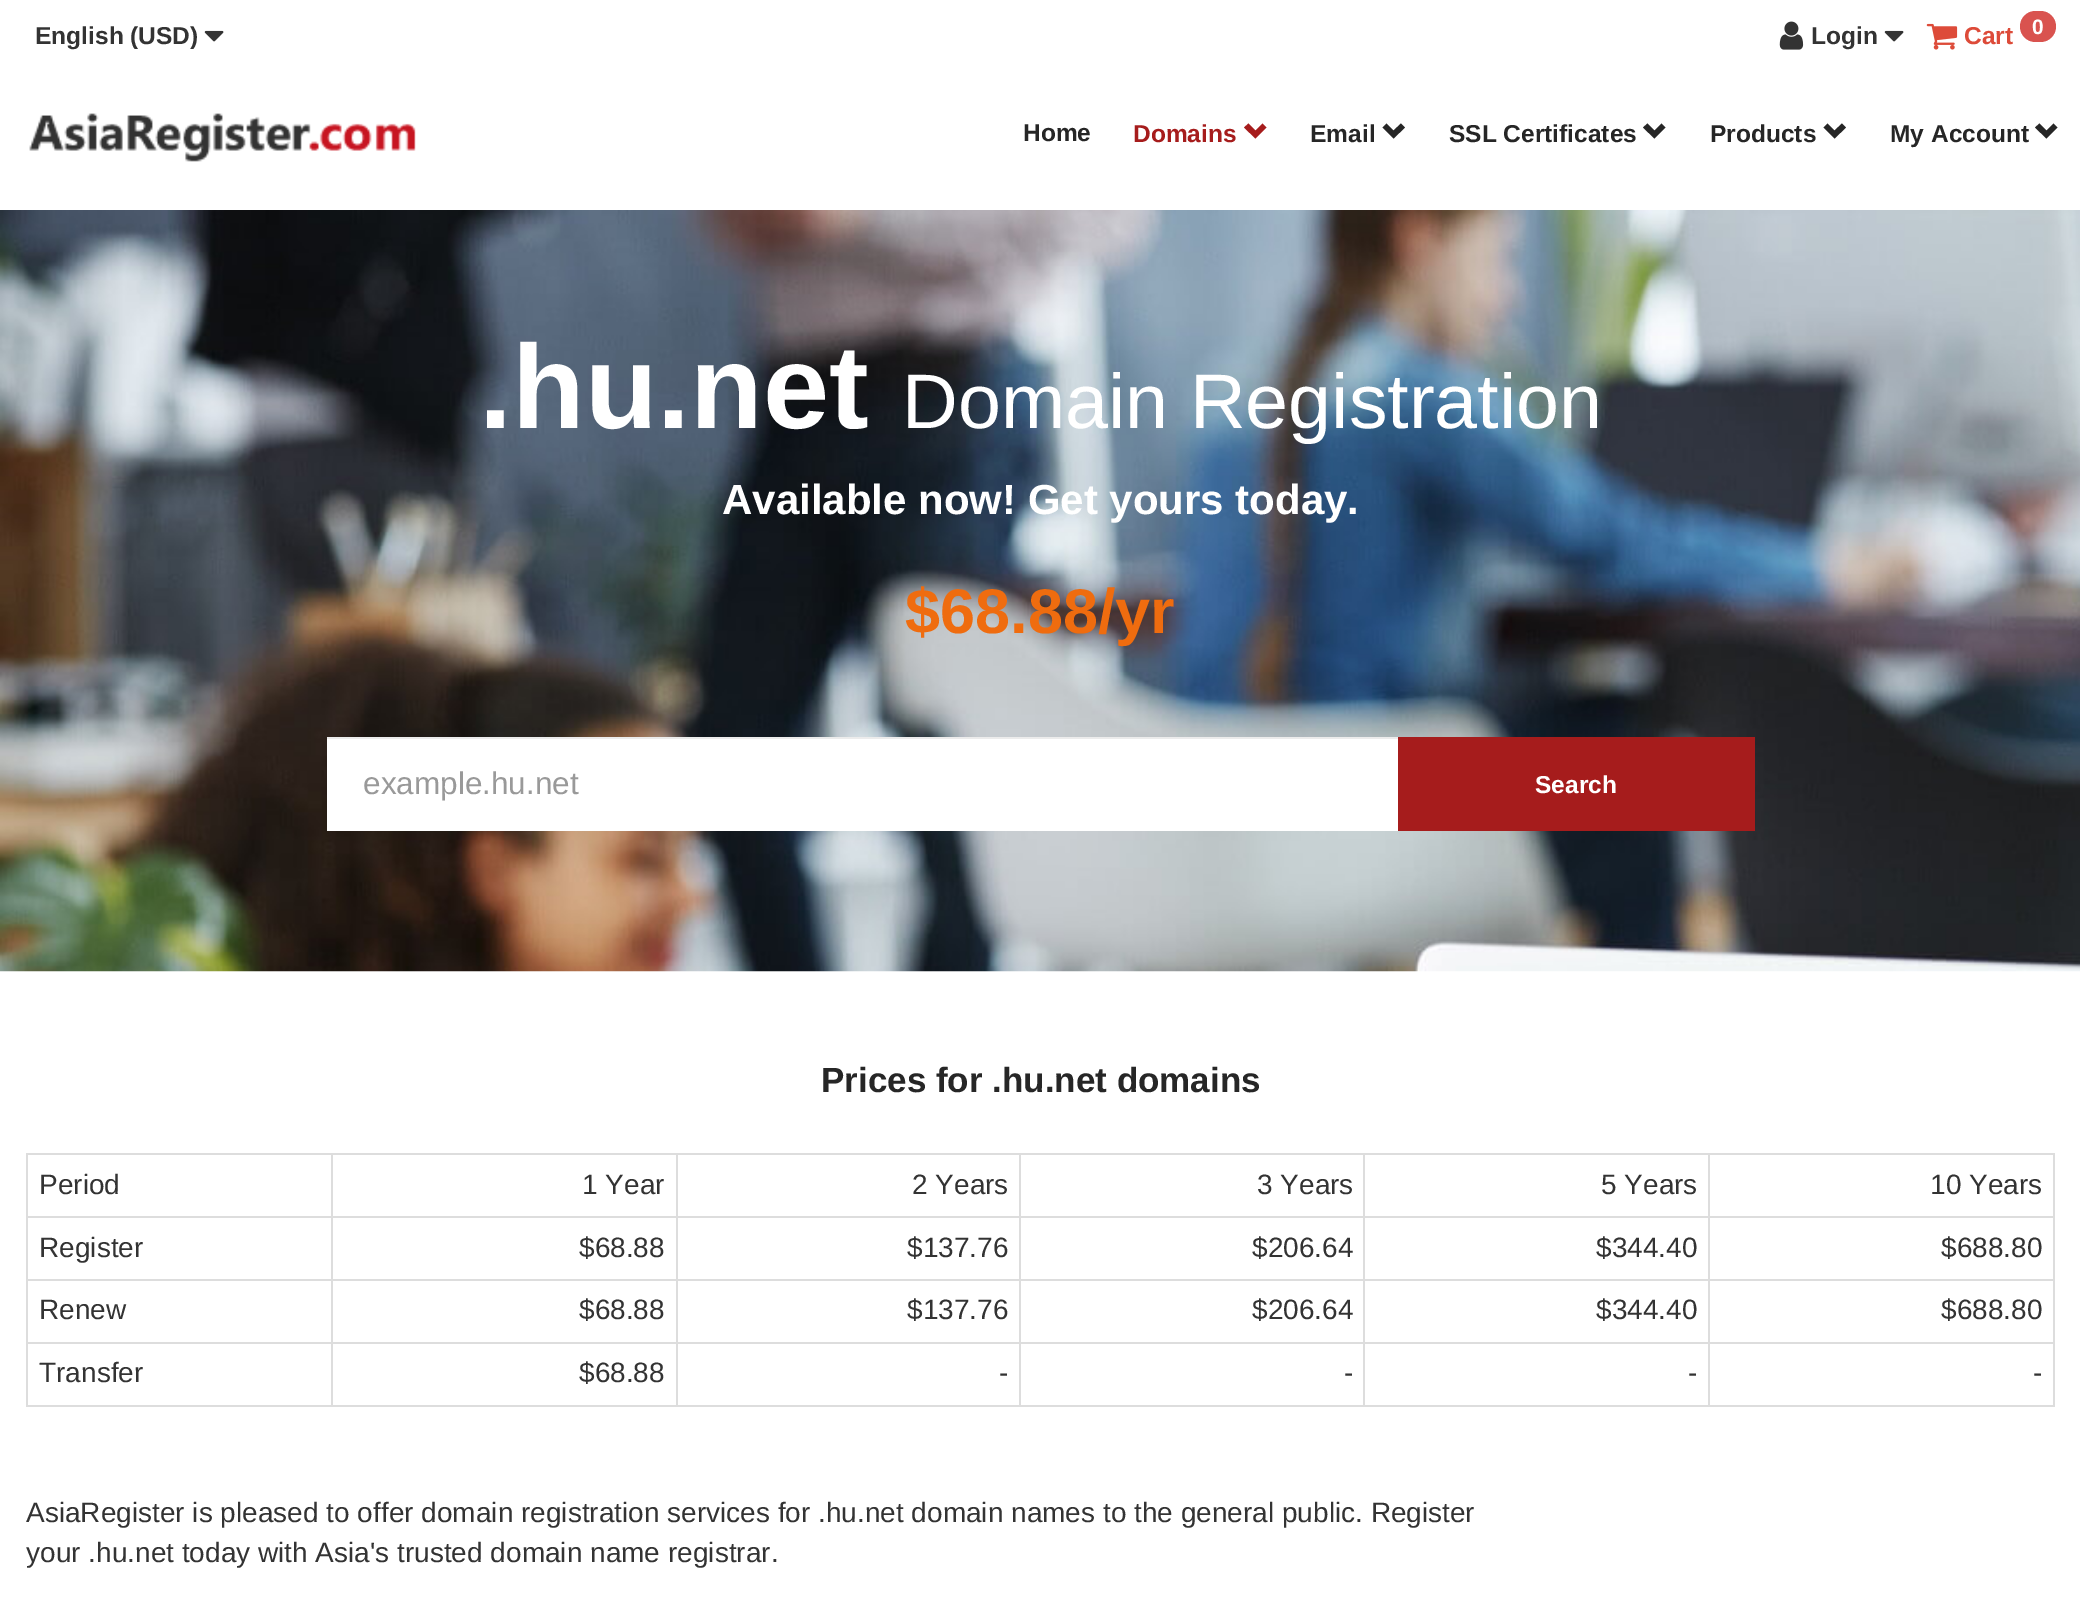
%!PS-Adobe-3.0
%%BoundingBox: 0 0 2080 1609
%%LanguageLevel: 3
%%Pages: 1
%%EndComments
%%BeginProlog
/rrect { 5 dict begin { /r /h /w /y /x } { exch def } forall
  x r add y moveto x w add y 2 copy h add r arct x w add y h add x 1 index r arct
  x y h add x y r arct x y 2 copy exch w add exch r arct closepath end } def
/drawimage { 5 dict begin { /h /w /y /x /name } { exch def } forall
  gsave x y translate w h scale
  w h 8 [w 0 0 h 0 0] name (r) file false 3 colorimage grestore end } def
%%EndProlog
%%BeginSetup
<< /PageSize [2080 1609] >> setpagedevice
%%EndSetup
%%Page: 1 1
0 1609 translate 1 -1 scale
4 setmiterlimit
1 setgray
0 0 2080 1609 rectfill
(images/1.raw) 204 30 20 12 drawimage
(images/2.raw) 1779 21 25 29 drawimage
(images/1.raw) 1884 30 20 12 drawimage
(images/3.raw) 1926 23 32 27 drawimage
0.851 0.325 0.31 setrgbcolor
2020 11 36 31 15.5 rrect fill
(images/4.raw) 29 113 387 49 drawimage
0.651 0.11 0.11 setrgbcolor
newpath 1266.5 127.5 moveto 1255.5 138.5 lineto 1244 127.5 lineto 1248.5 123.5 lineto 1255.5 130.5 lineto 1262.5 123.5 lineto closepath fill
0.149 setgray
newpath 1405 127.5 moveto 1393.5 138.5 lineto 1382.5 127.5 lineto 1386.5 123.5 lineto 1393.5 130.5 lineto 1401 123.5 lineto closepath fill
newpath 1665.5 127.5 moveto 1654.5 138.5 lineto 1643 127.5 lineto 1647.5 123.5 lineto 1654.5 130.5 lineto 1661.5 123.5 lineto closepath fill
newpath 1846 127.5 moveto 1834.5 138.5 lineto 1823.5 127.5 lineto 1827.5 123.5 lineto 1834.5 130.5 lineto 1842 123.5 lineto closepath fill
newpath 2057.5 127.5 moveto 2046.5 138.5 lineto 2035 127.5 lineto 2039.5 123.5 lineto 2046.5 130.5 lineto 2053.5 123.5 lineto closepath fill
(images/5.raw) 0 210 2080 762 drawimage
1 setgray
327 739 1071 92 rectfill
0.925 setgray
327 737 1071 2 rectfill
0.651 0.11 0.11 setrgbcolor
1398 737 357 94 rectfill
0.867 setgray
26 1153 2029 2 rectfill
2053 1153 2 254 rectfill
26 1405 2029 2 rectfill
26 1153 2 254 rectfill
1708 1216 347 2 rectfill
1708 1279 347 2 rectfill
1708 1342 347 2 rectfill
1708 1342 2 65 rectfill
1363 1342 347 2 rectfill
1708 1279 2 65 rectfill
1363 1279 347 2 rectfill
1708 1216 2 65 rectfill
1363 1216 347 2 rectfill
1363 1342 2 65 rectfill
1019 1342 346 2 rectfill
1363 1279 2 65 rectfill
1019 1279 346 2 rectfill
1363 1216 2 65 rectfill
1019 1216 346 2 rectfill
1019 1342 2 65 rectfill
676 1342 344 2 rectfill
1019 1279 2 65 rectfill
676 1279 344 2 rectfill
1019 1216 2 65 rectfill
676 1216 344 2 rectfill
676 1342 2 65 rectfill
331 1342 346 2 rectfill
676 1279 2 65 rectfill
331 1279 346 2 rectfill
676 1216 2 65 rectfill
331 1216 346 2 rectfill
331 1342 2 65 rectfill
26 1342 307 2 rectfill
331 1279 2 65 rectfill
26 1279 307 2 rectfill
331 1216 2 65 rectfill
26 1216 307 2 rectfill
331 1153 2 65 rectfill
676 1153 2 65 rectfill
1019 1153 2 65 rectfill
1363 1153 2 65 rectfill
1708 1153 2 65 rectfill
/LiberationSans-Bold [24.5 0 0 -24.5 0 0] selectfont
0.2 setgray
35 44 moveto (English \(USD\)) show
1811 44 moveto (Login) show
0.867 0.294 0.224 setrgbcolor
1964 44 moveto (Cart) show
/LiberationSans-Bold [21 0 0 -21 0 0] selectfont
1 setgray
2032 34 moveto (0) show
/LiberationSans-Bold [24.5 0 0 -24.5 0 0] selectfont
0.149 setgray
1023 141 moveto (Home) show
0.651 0.11 0.11 setrgbcolor
1133 142 moveto (Domains) show
0.149 setgray
1310 142 moveto (Email) show
1449 142 moveto (SSL Certificates) show
1710 142 moveto (Products) show
1890 142 moveto (My Account) show
/LiberationSans-Bold [119 0 0 -119 0 0] selectfont
1 setgray
479 428 moveto (.hu.net) show
/LiberationSans-Regular [77.25 0 0 -77.25 0 0] selectfont
902 428 moveto (Domain Registration) show
/LiberationSans-Bold [42 0 0 -42 0 0] selectfont
722 514 moveto (Available now! Get yours today.) show
/LiberationSans-Bold [63 0 0 -63 0 0] selectfont
0.937 0.424 0.059 setrgbcolor
905 633 moveto ($68.88/yr) show
/LiberationSans-Regular [31.5 0 0 -31.5 0 0] selectfont
0.6 setgray
363 794 moveto (example.hu.net) show
/LiberationSans-Bold [24.5 0 0 -24.5 0 0] selectfont
1 setgray
1535 793 moveto (Search) show
/LiberationSans-Bold [35 0 0 -35 0 0] selectfont
0.149 setgray
821 1092 moveto (Prices for .hu.net domains) show
/LiberationSans-Regular [28 0 0 -28 0 0] selectfont
0.2 setgray
39 1194 moveto (Period) show
582 1194 moveto (1 Year) show
912 1194 moveto (2 Years) show
1257 1194 moveto (3 Years) show
1601 1194 moveto (5 Years) show
1930 1194 moveto (10 Years) show
39 1257 moveto (Register) show
579 1257 moveto ($68.88) show
907 1257 moveto ($137.76) show
1252 1257 moveto ($206.64) show
1596 1257 moveto ($344.40) show
1941 1257 moveto ($688.80) show
39 1319 moveto (Renew) show
579 1319 moveto ($68.88) show
907 1319 moveto ($137.76) show
1252 1319 moveto ($206.64) show
1596 1319 moveto ($344.40) show
1941 1319 moveto ($688.80) show
39 1382 moveto (Transfer) show
579 1382 moveto ($68.88) show
999 1382 moveto (-) show
1344 1382 moveto (-) show
1688 1382 moveto (-) show
2033 1382 moveto (-) show
26 1522 moveto (AsiaRegister is pleased to offer domain registration services for .hu.net domain names to the general public. Register) show
26 1562 moveto (your .hu.net today with Asia's trusted domain name registrar.) show
showpage
%%EOF
